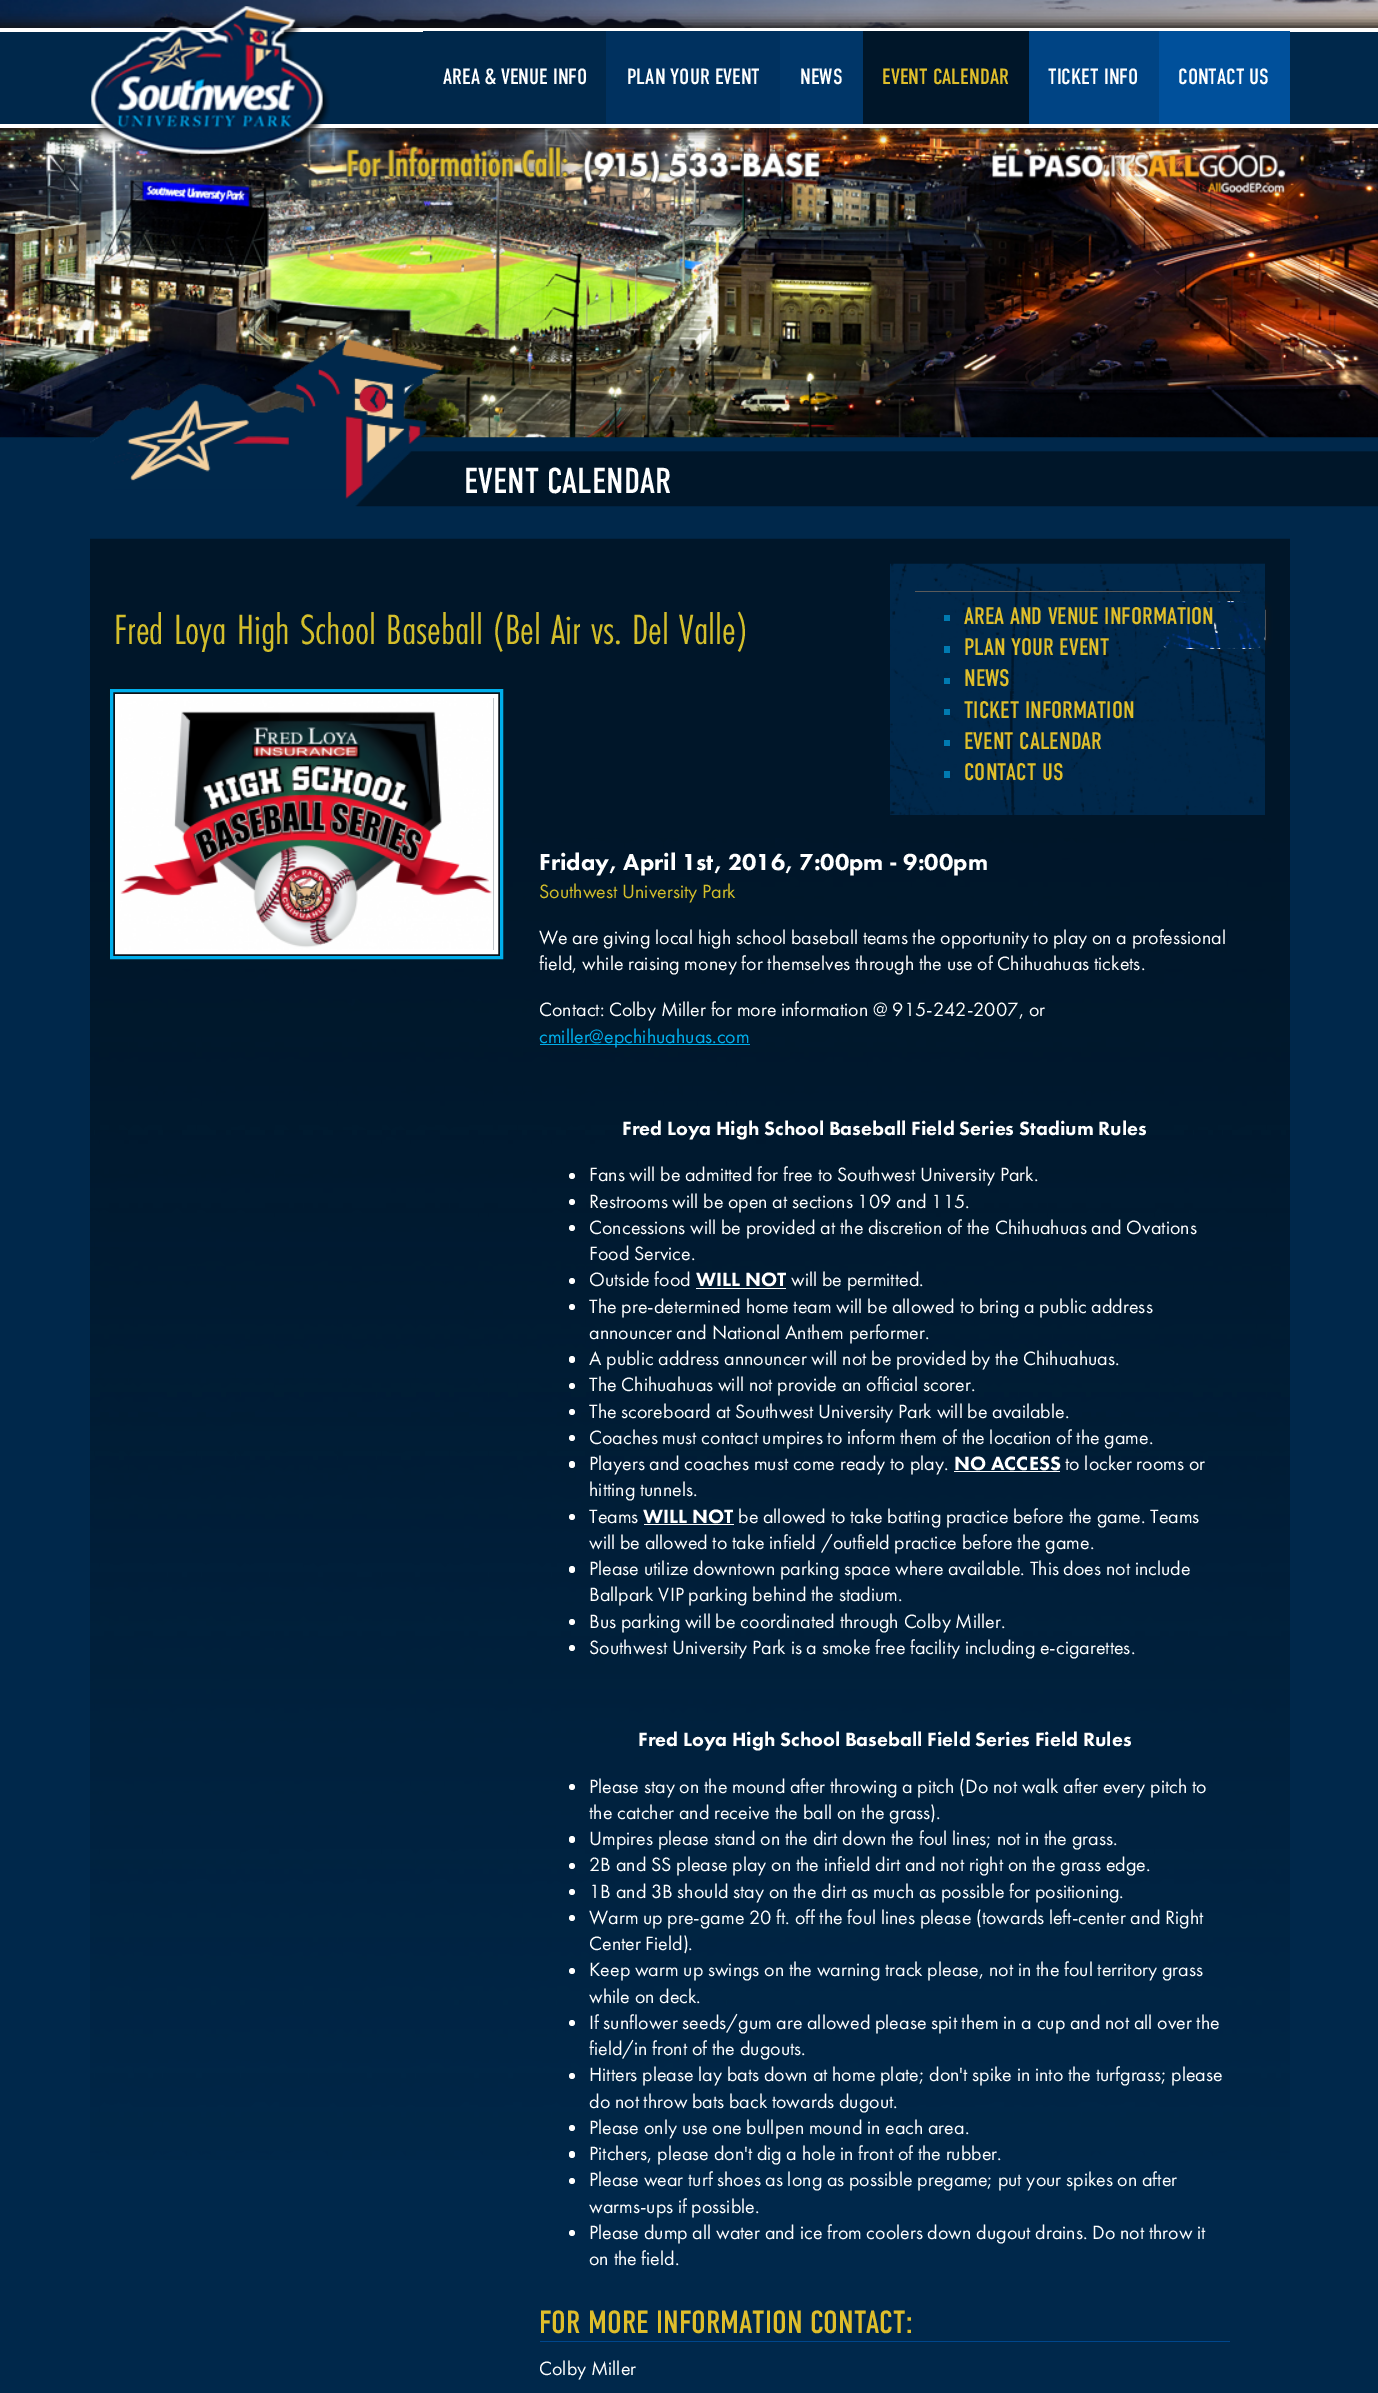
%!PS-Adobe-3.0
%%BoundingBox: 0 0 1378 2393
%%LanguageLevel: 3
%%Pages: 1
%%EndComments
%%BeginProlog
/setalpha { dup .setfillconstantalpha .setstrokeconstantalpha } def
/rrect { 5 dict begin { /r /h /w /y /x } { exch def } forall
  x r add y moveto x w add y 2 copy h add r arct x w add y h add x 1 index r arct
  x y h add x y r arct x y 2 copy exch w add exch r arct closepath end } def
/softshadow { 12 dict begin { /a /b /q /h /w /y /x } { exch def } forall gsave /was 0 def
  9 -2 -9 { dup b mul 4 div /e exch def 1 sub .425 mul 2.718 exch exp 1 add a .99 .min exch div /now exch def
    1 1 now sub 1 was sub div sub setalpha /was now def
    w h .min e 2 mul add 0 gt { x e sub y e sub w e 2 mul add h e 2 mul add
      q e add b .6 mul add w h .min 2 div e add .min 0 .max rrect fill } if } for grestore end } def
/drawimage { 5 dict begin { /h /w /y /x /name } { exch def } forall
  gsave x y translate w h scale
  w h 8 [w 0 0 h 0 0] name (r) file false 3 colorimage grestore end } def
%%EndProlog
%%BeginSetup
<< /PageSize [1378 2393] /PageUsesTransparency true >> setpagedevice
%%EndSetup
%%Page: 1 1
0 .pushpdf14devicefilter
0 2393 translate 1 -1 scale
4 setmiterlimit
0 0.157 0.294 setrgbcolor
0 0 1378 2393 rectfill
(images/1.raw) 0 0 1378 438 drawimage
0.078 setgray
-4 24 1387 107 0 6 1 softshadow
0 0.157 0.294 setrgbcolor
0 32 1378 92 rectfill
1 setgray
0 28 1378 4 rectfill
0 124 1378 4 rectfill
(images/2.raw) 91 6 239 157 drawimage
0 0.157 0.294 setrgbcolor
423 31 183 1 rectfill
0 0.192 0.373 setrgbcolor
606 31 174 93 rectfill
0 0.212 0.408 setrgbcolor
780 31 83 93 rectfill
0 0.086 0.161 setrgbcolor
863 31 166 93 rectfill
0 0.267 0.518 setrgbcolor
1029 31 130 93 rectfill
0 0.314 0.608 setrgbcolor
1159 31 131 93 rectfill
(images/3.raw) 342 143 482 42 drawimage
(images/4.raw) 989 151 299 46 drawimage
(images/5.raw) 355 451 1023 56 drawimage
(images/6.raw) 90 338 354 161 drawimage
(images/7.raw) 90 538 1200 1622 drawimage
0.09 setgray
1159 600 107 50 11 3 1 softshadow
gsave
1160 601 105 48 10 rrect clip newpath
gsave newpath 1182 602 moveto 1247 602 lineto 1247 603 lineto 1182 603 lineto closepath clip newpath
<< /ShadingType 2 /ColorSpace /DeviceRGB /Coords [1213 558 1213 603] /Extend [true true] /Function << /FunctionType 2 /Domain [0 1] /C0 [0 0.086 0.161] /C1 [0 0.255 0.698] /N 1 >> >> shfill grestore
gsave newpath 1160 603 moveto 1265 603 lineto 1265 648 lineto 1160 648 lineto closepath clip newpath
<< /ShadingType 2 /ColorSpace /DeviceRGB /Coords [1213 603 1213 648] /Extend [true true] /Function << /FunctionType 2 /Domain [0 1] /C0 [0 0.086 0.161] /C1 [0 0.255 0.698] /N 1 >> >> shfill grestore
grestore
1 setgray
1160.5 601.5 104 47 9.5 rrect stroke
(images/8.raw) 890 563 375 252 drawimage
0.353 setgray
915 591 325 1 rectfill
0 0.478 0.694 setrgbcolor
944 615 6 6 rectfill
944 646 6 7 rectfill
944 678 6 6 rectfill
944 709 6 6 rectfill
944 740 6 6 rectfill
944 771 6 7 rectfill
0.059 setgray
113 691 387 265 0 3 1 softshadow
1 setgray
4 setlinewidth
117 696 379 256 rectstroke
(images/9.raw) 119 698 375 252 drawimage
0 0.686 0.925 setrgbcolor
3 setlinewidth
111.5 690.5 390 267 rectstroke
540 1044 210 1 rectfill
1 setgray
newpath 572 1176 3 0 360 arc closepath fill
newpath 572 1202 3 0 360 arc closepath fill
newpath 572 1228 3 0 360 arc closepath fill
newpath 572 1281 3 0 360 arc closepath fill
696 1288 90 1 rectfill
newpath 572 1307 3 0 360 arc closepath fill
569 1356 6 7 3 rrect fill
newpath 572 1386 3 0 360 arc closepath fill
newpath 572 1412 3 0 360 arc closepath fill
newpath 572 1438 3 0 360 arc closepath fill
569 1461 6 7 3 rrect fill
954 1471 106 1 rectfill
newpath 572 1517 3 0 360 arc closepath fill
644 1524 90 1 rectfill
569 1566 6 7 3 rrect fill
newpath 572 1622 3 0 360 arc closepath fill
newpath 572 1648 3 0 360 arc closepath fill
newpath 572 1787 3 0 360 arc closepath fill
569 1836 6 7 3 rrect fill
newpath 572 1866 3 0 360 arc closepath fill
newpath 572 1892 3 0 360 arc closepath fill
newpath 572 1918 3 0 360 arc closepath fill
newpath 572 1971 3 0 360 arc closepath fill
newpath 572 2023 3 0 360 arc closepath fill
newpath 572 2076 3 0 360 arc closepath fill
newpath 572 2128 3 0 360 arc closepath fill
569 2151 6 7 3 rrect fill
newpath 572 2181 3 0 360 arc closepath fill
newpath 572 2233 3 0 360 arc closepath fill
0 0.278 0.553 setrgbcolor
540 2341 690 1 rectfill
/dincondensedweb-Regular [22 0 0 -22 0 0] selectfont
1 setgray
443 84 moveto (AREA & VENUE INFO) show
627 84 moveto (PLAN YOUR EVENT) show
800 84 moveto (NEWS) show
0.875 0.745 0.169 setrgbcolor
882 84 moveto (EVENT CALENDAR) show
1 setgray
1048 84 moveto (TICKET INFO) show
1178 84 moveto (CONTACT US) show
/dincondensedweb-Regular [36 0 0 -36 0 0] selectfont
464 493 moveto (EVENT CALENDAR) show
/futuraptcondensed-Regular [44 0 0 -44 0 0] selectfont
0.827 0.745 0.169 setrgbcolor
114 644 moveto (Fred Loya High School Baseball \(Bel Air vs. Del Valle\)) show
/dincondensedweb-Regular [24 0 0 -24 0 0] selectfont
0.875 0.745 0.169 setrgbcolor
964 624 moveto (AREA AND VENUE INFORMATION) show
964 655 moveto (PLAN YOUR EVENT) show
964 686 moveto (NEWS) show
964 718 moveto (TICKET INFORMATION) show
964 749 moveto (EVENT CALENDAR) show
964 780 moveto (CONTACT US) show
/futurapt-SemiBold [24 0 0 -24 0 0] selectfont
1 setgray
539 870 moveto (Friday, April 1st, 2016, 7:00pm - 9:00pm) show
/futurapt-Regular [20 0 0 -20 0 0] selectfont
0.827 0.745 0.169 setrgbcolor
539 898 moveto (Southwest University Park) show
1 setgray
539 944 moveto (We are giving local high school baseball teams the opportunity to play on a professional) show
539 970 moveto (field, while raising money for themselves through the use of Chihuahuas tickets.) show
539 1016 moveto (Contact: Colby Miller for more information @ 915-242-2007, or) show
0 0.686 0.925 setrgbcolor
539 1043 moveto (cmiller@epchihuahuas.com) show
/futurapt-SemiBold [20 0 0 -20 0 0] selectfont
1 setgray
622 1135 moveto (Fred Loya High School Baseball Field Series Stadium Rules) show
/futurapt-Regular [20 0 0 -20 0 0] selectfont
589 1181 moveto (Fans will be admitted for free to Southwest University Park.) show
589 1208 moveto (Restrooms will be open at sections 109 and 115.) show
589 1234 moveto (Concessions will be provided at the discretion of the Chihuahuas and Ovations) show
589 1260 moveto (Food Service.) show
589 1286 moveto (Outside food) show
/futurapt-SemiBold [20 0 0 -20 0 0] selectfont
696 1286 moveto (WILL NOT) show
/futurapt-Regular [20 0 0 -20 0 0] selectfont
791 1286 moveto (will be permitted.) show
589 1313 moveto (The pre-determined home team will be allowed to bring a public address) show
589 1339 moveto (announcer and National Anthem performer.) show
589 1365 moveto (A public address announcer will not be provided by the Chihuahuas.) show
589 1391 moveto (The Chihuahuas will not provide an official scorer.) show
589 1418 moveto (The scoreboard at Southwest University Park will be available.) show
589 1444 moveto (Coaches must contact umpires to inform them of the location of the game.) show
589 1470 moveto (Players and coaches must come ready to play.) show
/futurapt-SemiBold [20 0 0 -20 0 0] selectfont
954 1470 moveto (NO ACCESS) show
/futurapt-Regular [20 0 0 -20 0 0] selectfont
1065 1470 moveto (to locker rooms or) show
589 1496 moveto (hitting tunnels.) show
589 1523 moveto (Teams) show
/futurapt-SemiBold [20 0 0 -20 0 0] selectfont
643 1523 moveto (WILL NOT) show
/futurapt-Regular [20 0 0 -20 0 0] selectfont
738 1523 moveto (be allowed to take batting practice before the game. Teams) show
589 1549 moveto (will be allowed to take infield /outfield practice before the game.) show
589 1575 moveto (Please utilize downtown parking space where available. This does not include) show
589 1601 moveto (Ballpark VIP parking behind the stadium.) show
589 1628 moveto (Bus parking will be coordinated through Colby Miller.) show
589 1654 moveto (Southwest University Park is a smoke free facility including e-cigarettes.) show
/futurapt-SemiBold [20 0 0 -20 0 0] selectfont
638 1746 moveto (Fred Loya High School Baseball Field Series Field Rules) show
/futurapt-Regular [20 0 0 -20 0 0] selectfont
589 1793 moveto (Please stay on the mound after throwing a pitch \(Do not walk after every pitch to) show
589 1819 moveto (the catcher and receive the ball on the grass\).) show
589 1845 moveto (Umpires please stand on the dirt down the foul lines; not in the grass.) show
589 1871 moveto (2B and SS please play on the infield dirt and not right on the grass edge.) show
589 1898 moveto (1B and 3B should stay on the dirt as much as possible for positioning.) show
589 1924 moveto (Warm up pre-game 20 ft. off the foul lines please \(towards left-center and Right) show
589 1950 moveto (Center Field\).) show
589 1976 moveto (Keep warm up swings on the warning track please, not in the foul territory grass) show
589 2003 moveto (while on deck.) show
589 2029 moveto (If sunflower seeds/gum are allowed please spit them in a cup and not all over the) show
589 2055 moveto (field/in front of the dugouts.) show
589 2081 moveto (Hitters please lay bats down at home plate; don't spike in into the turfgrass; please) show
589 2108 moveto (do not throw bats back towards dugout.) show
589 2134 moveto (Please only use one bullpen mound in each area.) show
589 2160 moveto (Pitchers, please don't dig a hole in front of the rubber.) show
589 2186 moveto (Please wear turf shoes as long as possible pregame; put your spikes on after) show
589 2213 moveto (warms-ups if possible.) show
589 2239 moveto (Please dump all water and ice from coolers down dugout drains. Do not throw it) show
589 2265 moveto (on the field.) show
/dincondensedweb-Regular [32 0 0 -32 0 0] selectfont
0.875 0.745 0.169 setrgbcolor
539 2333 moveto (FOR MORE INFORMATION CONTACT:) show
/futurapt-Regular [20 0 0 -20 0 0] selectfont
1 setgray
539 2375 moveto (Colby Miller) show
.poppdf14devicefilter showpage
%%EOF
